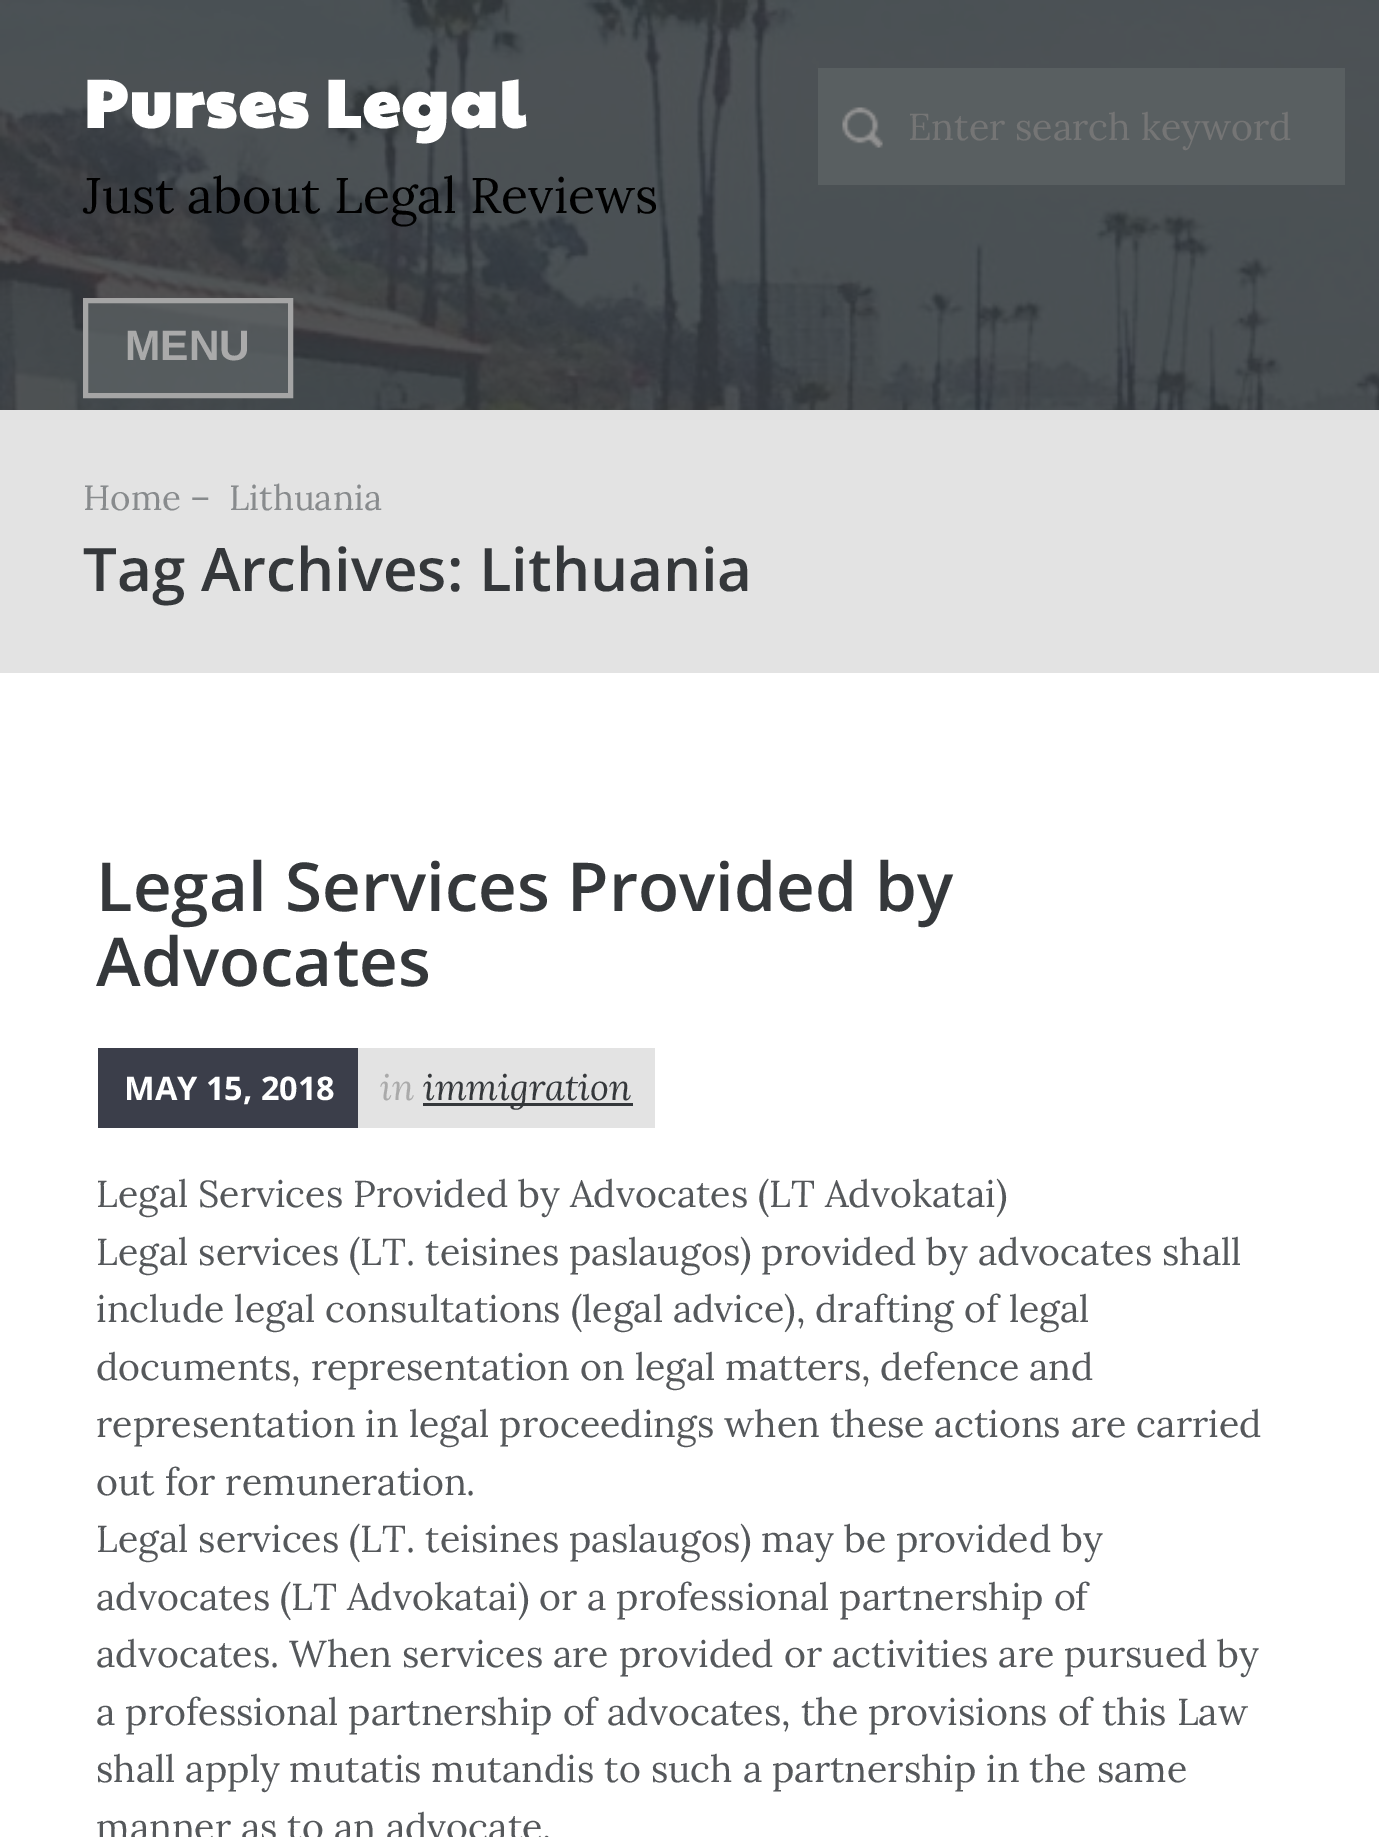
%!PS-Adobe-3.0
%%BoundingBox: 0 0 1379 1837
%%LanguageLevel: 3
%%Pages: 1
%%EndComments
%%BeginProlog
/setalpha { dup .setfillconstantalpha .setstrokeconstantalpha } def
/drawimage { 5 dict begin { /h /w /y /x /name } { exch def } forall
  gsave x y translate w h scale
  w h 8 [w 0 0 h 0 0] name (r) file false 3 colorimage grestore end } def
%%EndProlog
%%BeginSetup
<< /PageSize [1379 1837] /PageUsesTransparency true >> setpagedevice
%%EndSetup
%%Page: 1 1
0 .pushpdf14devicefilter
0 1837 translate 1 -1 scale
4 setmiterlimit
1 setgray
0 0 1379 1837 rectfill
(images/1.raw) 0 0 1379 410 drawimage
0.349 0.373 0.38 setrgbcolor
818 68 527 117 rectfill
(images/2.raw) 842 107 41 41 drawimage
0.75 setalpha
0.365 0.388 0.396 setrgbcolor
newpath 85.5 300.5 moveto 290.5 300.5 lineto 290.5 395.5 lineto 85.5 395.5 lineto closepath fill
1 setalpha
0.647 setgray
5 setlinewidth
newpath 85.5 300.5 moveto 290.5 300.5 lineto 290.5 395.5 lineto 85.5 395.5 lineto closepath stroke
0.89 setgray
0 410 1379 263 rectfill
0.231 0.243 0.29 setrgbcolor
98 1048 260 80 rectfill
0.89 setgray
358 1048 297 80 rectfill
0.208 0.22 0.231 setrgbcolor
423 1103 210 3 rectfill
/PaytoneOne-Bold [67.5 0 0 -67.5 0 0] selectfont
1 setgray
83 128 moveto 1.75 0 (Purses Legal) ashow
/Lora-Regular [50 0 0 -50 0 0] selectfont
0 setgray
83 213 moveto (Just about Legal Reviews) show
/Lora-Regular [37.5 0 0 -37.5 0 0] selectfont
0.459 setgray
908 140 moveto (Enter search keyword) show
/LiberationSans-Bold [42.5 0 0 -42.5 0 0] selectfont
0.667 setgray
125 360 moveto (MENU) show
/Lora-Regular [35 0 0 -35 0 0] selectfont
0.533 0.545 0.553 setrgbcolor
83 510 moveto (Home –) show
229 510 moveto (Lithuania) show
/OpenSans-SemiBold [60 0 0 -60 0 0] selectfont
0.208 0.22 0.231 setrgbcolor
83 591 moveto (Tag Archives: Lithuania) show
/OpenSans-SemiBold [67.5 0 0 -67.5 0 0] selectfont
96 911 moveto (Legal Services Provided by) show
96 986 moveto (Advocates) show
/OpenSans-Bold [32.5 0 0 -32.5 0 0] selectfont
1 setgray
124 1100 moveto (MAY 15, 2018) show
/Lora-Italic [36.25 0 0 -36.25 0 0] selectfont
0.667 setgray
380 1100 moveto (in) show
0.208 0.22 0.231 setrgbcolor
423 1100 moveto (immigration) show
/Lora-Regular [37.5 0 0 -37.5 0 0] selectfont
0.333 0.345 0.357 setrgbcolor
96 1207 moveto (Legal Services Provided by Advocates \(LT Advokatai\)) show
96 1265 moveto (Legal services \(LT. teisines paslaugos\) provided by advocates shall) show
96 1322 moveto (include legal consultations \(legal advice\), drafting of legal) show
96 1380 moveto (documents, representation on legal matters, defence and) show
96 1437 moveto (representation in legal proceedings when these actions are carried) show
96 1495 moveto (out for remuneration.) show
96 1552 moveto (Legal services \(LT. teisines paslaugos\) may be provided by) show
96 1610 moveto (advocates \(LT Advokatai\) or a professional partnership of) show
96 1667 moveto (advocates. When services are provided or activities are pursued by) show
96 1725 moveto (a professional partnership of advocates, the provisions of this Law) show
96 1782 moveto (shall apply mutatis mutandis to such a partnership in the same) show
96 1840 moveto (manner as to an advocate.) show
.poppdf14devicefilter showpage
%%EOF
